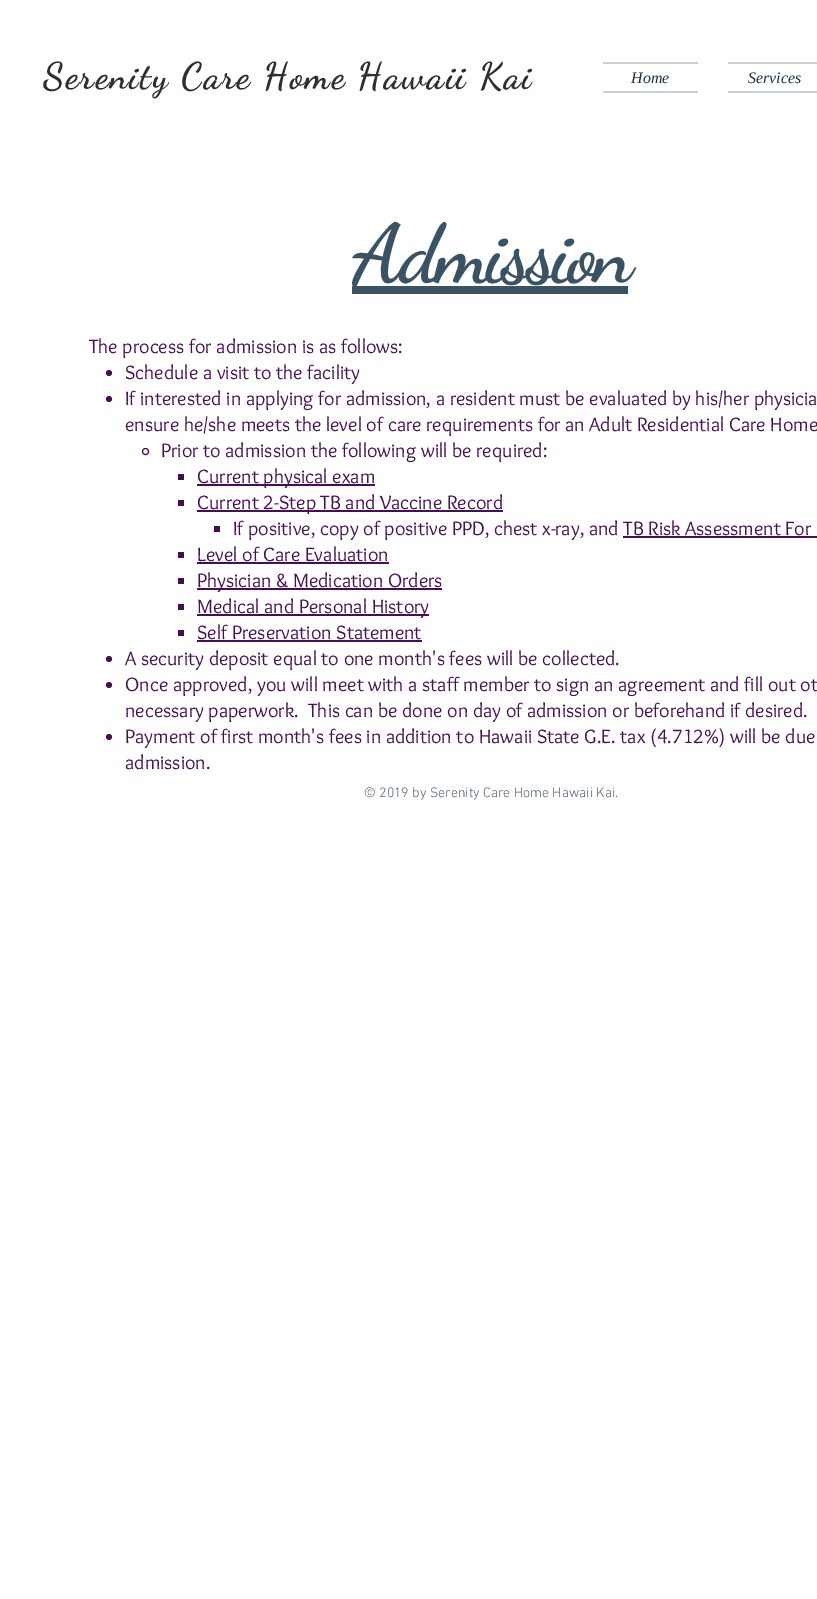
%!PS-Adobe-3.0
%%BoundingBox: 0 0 817 1599
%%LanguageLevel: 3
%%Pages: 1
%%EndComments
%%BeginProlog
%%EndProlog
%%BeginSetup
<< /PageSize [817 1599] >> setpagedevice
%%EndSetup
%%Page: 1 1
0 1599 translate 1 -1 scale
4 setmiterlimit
1 setgray
0 0 817 1599 rectfill
0.773 0.816 0.851 setrgbcolor
603 62 95 2 rectfill
603 91 95 2 rectfill
728 62 89 2 rectfill
728 91 89 2 rectfill
0.224 0.322 0.392 setrgbcolor
352 286 276 8 rectfill
0.275 0.055 0.329 setrgbcolor
newpath 109 373 3 0 360 arc closepath fill
newpath 109 399 3 0 360 arc closepath fill
newpath 145.5 451.5 3 0 360 arc closepath stroke
178 474 6 6 rectfill
197 484 178 2 rectfill
178 500 6 6 rectfill
197 510 306 2 rectfill
214 526 6 6 rectfill
623 536 194 2 rectfill
178 552 6 6 rectfill
197 562 192 2 rectfill
178 578 6 6 rectfill
197 588 245 2 rectfill
178 604 6 6 rectfill
197 614 232 2 rectfill
178 630 6 6 rectfill
197 640 225 2 rectfill
newpath 109 659 3 0 360 arc closepath fill
newpath 109 685 3 0 360 arc closepath fill
newpath 109 737 3 0 360 arc closepath fill
/DancingScript-Bold [37 0 0 -37 0 0] selectfont
0.184 0.18 0.18 setrgbcolor
43 88 moveto 1.85 0 (Serenity Care Home Hawaii Kai) ashow
/LiberationSerif-Italic [16 0 0 -16 0 0] selectfont
0.11 0.192 0.259 setrgbcolor
631 83 moveto (Home) show
748 83 moveto (Services) show
/DancingScript-Bold [82 0 0 -82 0 0] selectfont
0.224 0.322 0.392 setrgbcolor
352 281 moveto -4 0 (Admission) ashow
/Overlock-Regular [20 0 0 -20 0 0] selectfont
0.275 0.055 0.329 setrgbcolor
89 353 moveto (The process for admission is as follows:) show
125 379 moveto (Schedule a visit to the facility) show
125 405 moveto (If interested in applying for admission, a resident must be evaluated by his/her physicia) show
125 431 moveto (ensure he/she meets the level of care requirements for an Adult Residential Care Home) show
161 457 moveto (Prior to admission the following will be required:) show
197 483 moveto (Current physical exam) show
197 509 moveto (Current 2-Step TB and Vaccine Record) show
233 535 moveto (If positive, copy of positive PPD, chest x-ray, and TB Risk Assessment For) show
197 561 moveto (Level of Care Evaluation) show
197 587 moveto (Physician & Medication Orders) show
197 613 moveto (Medical and Personal History) show
197 639 moveto (Self Preservation Statement) show
125 665 moveto (A security deposit equal to one month's fees will be collected.) show
125 691 moveto (Once approved, you will meet with a staff member to sign an agreement and fill out ot) show
125 717 moveto (necessary paperwork.  This can be done on day of admission or beforehand if desired.) show
125 743 moveto (Payment of first month's fees in addition to Hawaii State G.E. tax \(4.712%\) will be due) show
125 769 moveto (admission.) show
/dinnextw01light-Light [14 0 0 -14 0 0] selectfont
0.318 0.388 0.443 setrgbcolor
364 797 moveto (© 2019 by Serenity Care Home Hawaii Kai.) show
showpage
%%EOF
